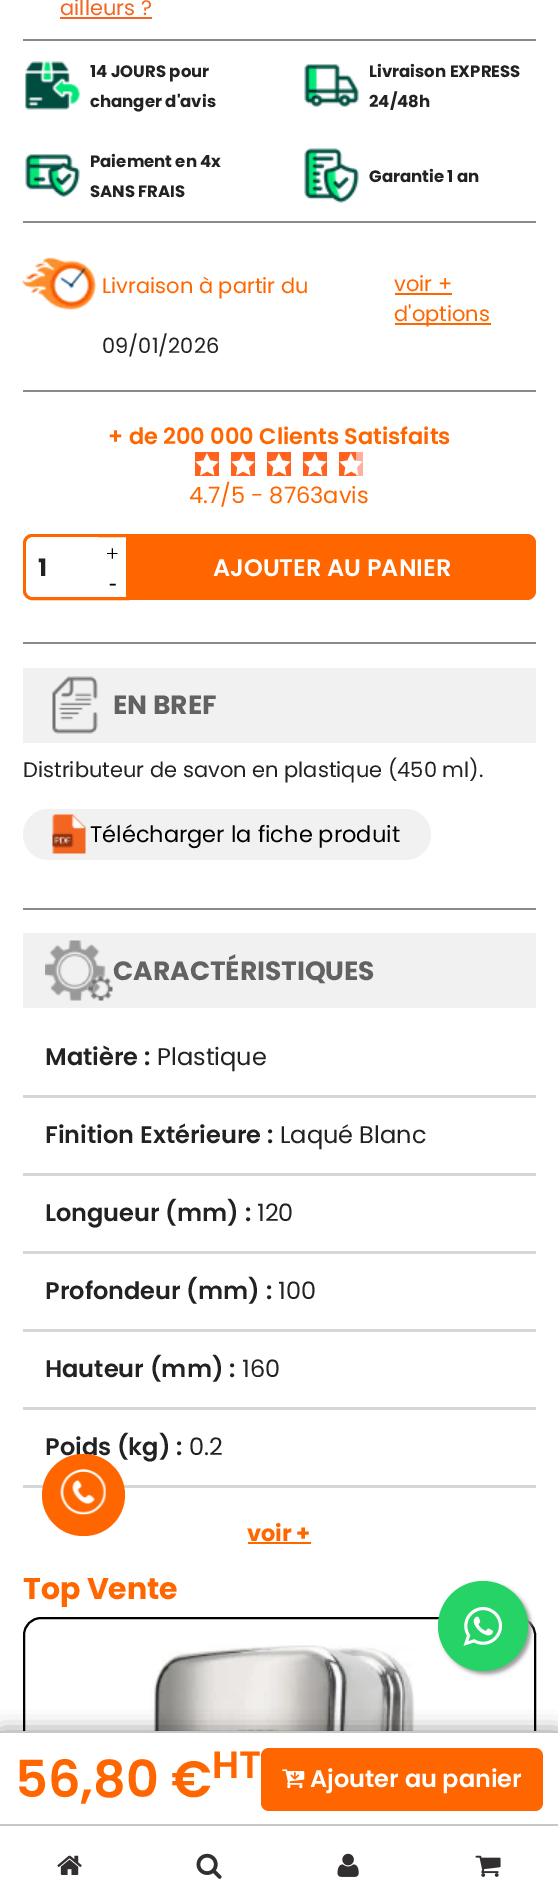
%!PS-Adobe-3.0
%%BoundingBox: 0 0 558 1899
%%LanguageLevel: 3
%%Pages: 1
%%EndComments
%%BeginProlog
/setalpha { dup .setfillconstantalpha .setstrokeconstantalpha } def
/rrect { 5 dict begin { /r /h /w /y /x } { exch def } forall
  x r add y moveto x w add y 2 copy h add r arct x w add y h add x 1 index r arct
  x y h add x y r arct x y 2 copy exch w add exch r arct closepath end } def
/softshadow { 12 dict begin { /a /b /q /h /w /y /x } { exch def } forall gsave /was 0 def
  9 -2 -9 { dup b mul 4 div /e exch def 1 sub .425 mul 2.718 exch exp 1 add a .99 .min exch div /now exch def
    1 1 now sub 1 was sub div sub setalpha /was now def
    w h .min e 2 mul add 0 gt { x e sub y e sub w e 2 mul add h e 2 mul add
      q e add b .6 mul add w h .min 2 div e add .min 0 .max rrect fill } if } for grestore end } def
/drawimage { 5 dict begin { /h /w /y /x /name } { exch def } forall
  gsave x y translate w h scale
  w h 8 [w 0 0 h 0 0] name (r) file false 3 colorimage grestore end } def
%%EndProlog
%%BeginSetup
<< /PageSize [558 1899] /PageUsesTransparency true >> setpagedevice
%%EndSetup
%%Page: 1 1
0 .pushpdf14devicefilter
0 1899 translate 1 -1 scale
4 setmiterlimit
1 setgray
0 0 558 1899 rectfill
1 0.686 0.624 setrgbcolor
356 452 7 24 rectfill
0.949 0.4 0.133 setrgbcolor
60 17 92 2 rectfill
0.541 setgray
23 39 513 2 rectfill
(images/1.raw) 25 61 55 49 drawimage
(images/2.raw) 304 64 55 43 drawimage
(images/3.raw) 25 154 55 43 drawimage
(images/4.raw) 304 148 55 55 drawimage
23 221 513 2 rectfill
(images/5.raw) 22 257 75 53 drawimage
1 0.4 0 setrgbcolor
395 293 57 2 rectfill
395 323 96 2 rectfill
0.541 setgray
23 390 513 2 rectfill
1 0.388 0.122 setrgbcolor
195 452 24 24 rectfill
(images/6.raw) 195 453 24 23 drawimage
231 452 24 24 rectfill
(images/6.raw) 231 453 24 23 drawimage
267 452 24 24 rectfill
(images/6.raw) 267 453 24 23 drawimage
303 452 24 24 rectfill
(images/6.raw) 303 453 24 23 drawimage
339 452 17 24 rectfill
(images/7.raw) 339 453 24 23 drawimage
1 0.4 0 setrgbcolor
3 setlinewidth
newpath 32 535.5 moveto 127.5 535.5 lineto 127.5 598.5 lineto 32 598.5 lineto 28 598.5 24.5 595 24.5 591 curveto 24.5 543 lineto 24.5 539 28 535.5 32 535.5 curveto closepath stroke
1 setgray
newpath 35 537 moveto 98 537 lineto 98 597 lineto 35 597 lineto 30 597 26 593 26 588 curveto 26 546 lineto 26 541 30 537 35 537 curveto closepath fill
1 0.4 0 setrgbcolor
newpath 129 534 moveto 527 534 lineto 532 534 536 538 536 543 curveto 536 591 lineto 536 596 532 600 527 600 curveto 129 600 lineto closepath fill
0.541 setgray
23 642 513 2 rectfill
0.945 setgray
23 668 513 75 rectfill
(images/8.raw) 52 676 46 58 drawimage
23 809 408 51 25.5 rrect fill
(images/9.raw) 52 814 34 40 drawimage
0.541 setgray
23 908 513 2 rectfill
0.945 setgray
23 933 513 75 rectfill
(images/10.raw) 45 940 68 61 drawimage
0.839 setgray
23 1095 513 3 rectfill
23 1173 513 3 rectfill
23 1251 513 3 rectfill
23 1329 513 3 rectfill
23 1407 513 3 rectfill
23 1485 513 3 rectfill
1 0.4 0 setrgbcolor
248 1542 63 2 rectfill
0 setgray
2 setlinewidth
24 1618 511 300 17 rrect stroke
(images/11.raw) 150 1645 265 86 drawimage
2 1733 555 91 0 10.5 0.49 softshadow
1 setgray
0 1733 558 91 rectfill
0.78 setgray
0 1731 558 2 rectfill
1 0.4 0 setrgbcolor
261 1748 282 63 8 rrect fill
(images/12.raw) 282 1769 23 20 drawimage
0.6 setgray
441 1584 90 90 45 2 1 softshadow
0.145 0.827 0.4 setrgbcolor
newpath 483 1626 45 0 360 arc closepath fill
(images/14.raw) 463 1607 40 39 drawimage
1 setgray
0 1826 558 73 rectfill
0.78 setgray
0 1824 558 2 rectfill
(images/15.raw) 57 1855 25 20 drawimage
(images/16.raw) 196 1853 26 26 drawimage
(images/17.raw) 337 1853 22 24 drawimage
(images/18.raw) 475 1855 26 22 drawimage
/Poppins-Regular [21 0 0 -21 0 0] selectfont
0.949 0.4 0.133 setrgbcolor
60 15 moveto (ailleurs ?) show
/Poppins-Bold [16.5 0 0 -16.5 0 0] selectfont
0.133 setgray
90 77 moveto (14 JOURS pour) show
90 107 moveto (changer d'avis) show
369 77 moveto (Livraison EXPRESS) show
369 107 moveto (24/48h) show
90 167 moveto (Paiement en 4x) show
90 197 moveto (SANS FRAIS) show
369 182 moveto (Garantie 1 an) show
/Poppins-Regular [21 0 0 -21 0 0] selectfont
1 0.4 0 setrgbcolor
102 293 moveto (Livraison à partir du) show
0.133 setgray
102 353 moveto (09/01/2026) show
1 0.4 0 setrgbcolor
394 291 moveto (voir +) show
394 321 moveto (d'options) show
/Poppins-SemiBold [22.5 0 0 -22.5 0 0] selectfont
108 444 moveto (+ de 200 000 Clients Satisfaits) show
/Poppins-Regular [22.5 0 0 -22.5 0 0] selectfont
189 503 moveto (4.7/5 - 8763avis) show
/Poppins-Bold [24 0 0 -24 0 0] selectfont
0.133 setgray
38 576 moveto (1) show
/LiberationSerif-Regular [22.5 0 0 -22.5 0 0] selectfont
0 setgray
106 561 moveto (+) show
109 590 moveto (-) show
/Poppins-SemiBold [24 0 0 -24 0 0] selectfont
1 setgray
213 576 moveto (AJOUTER AU PANIER) show
/Poppins-Bold [26.5 0 0 -26.5 0 0] selectfont
0.384 setgray
113 714 moveto (EN BREF) show
/Poppins-Regular [21 0 0 -21 0 0] selectfont
0.133 setgray
23 777 moveto (Distributeur de savon en plastique \(450 ml\).) show
/Poppins-Regular [22.5 0 0 -22.5 0 0] selectfont
0 setgray
90 842 moveto (Télécharger la fiche produit) show
/Poppins-Bold [26.5 0 0 -26.5 0 0] selectfont
0.384 setgray
113 980 moveto (CARACTÉRISTIQUES) show
/Poppins-SemiBold [24 0 0 -24 0 0] selectfont
0.133 setgray
45 1065 moveto (Matière :) show
/Poppins-Regular [24 0 0 -24 0 0] selectfont
157 1065 moveto (Plastique) show
/Poppins-SemiBold [24 0 0 -24 0 0] selectfont
45 1143 moveto (Finition Extérieure :) show
/Poppins-Regular [24 0 0 -24 0 0] selectfont
280 1143 moveto (Laqué Blanc) show
/Poppins-SemiBold [24 0 0 -24 0 0] selectfont
45 1221 moveto (Longueur \(mm\) :) show
/Poppins-Regular [24 0 0 -24 0 0] selectfont
257 1221 moveto (120) show
/Poppins-SemiBold [24 0 0 -24 0 0] selectfont
45 1299 moveto (Profondeur \(mm\) :) show
/Poppins-Regular [24 0 0 -24 0 0] selectfont
278 1299 moveto (100) show
/Poppins-SemiBold [24 0 0 -24 0 0] selectfont
45 1377 moveto (Hauteur \(mm\) :) show
/Poppins-Regular [24 0 0 -24 0 0] selectfont
242 1377 moveto (160) show
/Poppins-SemiBold [24 0 0 -24 0 0] selectfont
45 1455 moveto (Poids \(kg\) :) show
/Poppins-Regular [24 0 0 -24 0 0] selectfont
189 1455 moveto (0.2) show
/Poppins-Bold [22.5 0 0 -22.5 0 0] selectfont
1 0.4 0 setrgbcolor
247 1541 moveto (voir +) show
/Poppins-Bold [30 0 0 -30 0 0] selectfont
23 1599 moveto (Top Vente) show
/Poppins-SemiBold [51 0 0 -51 0 0] selectfont
15 1797 moveto (56,80 €) show
/Poppins-SemiBold [38 0 0 -38 0 0] selectfont
212 1778 moveto (HT) show
/Poppins-SemiBold [24 0 0 -24 0 0] selectfont
1 setgray
310 1787 moveto (Ajouter au panier) show
1 0.4 0 setrgbcolor
42 1454 83 82 41 rrect fill
(images/13.raw) 60 1469 46 46 drawimage
.poppdf14devicefilter showpage
%%EOF
